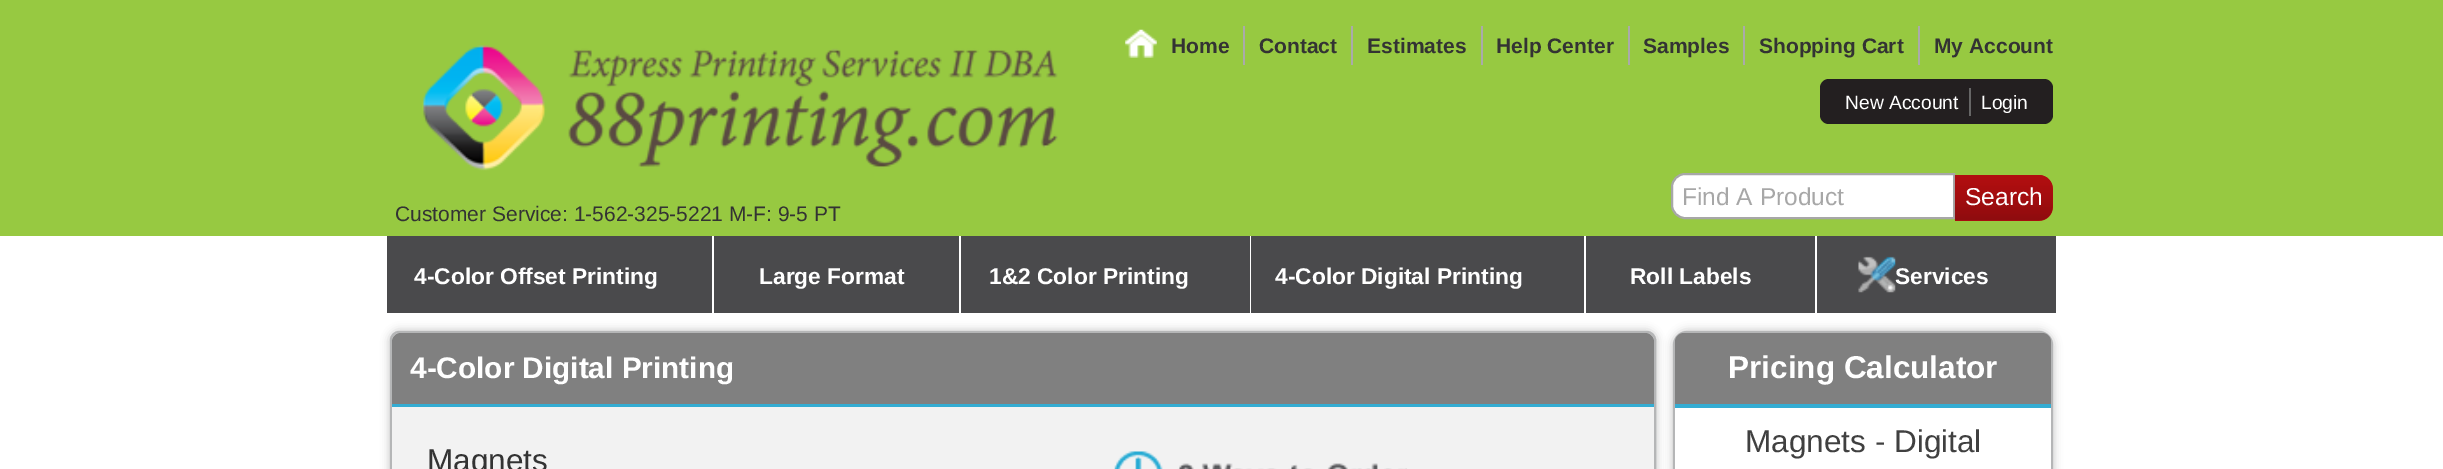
%!PS-Adobe-3.0
%%BoundingBox: 0 0 2443 469
%%LanguageLevel: 3
%%Pages: 1
%%EndComments
%%BeginProlog
/setalpha { dup .setfillconstantalpha .setstrokeconstantalpha } def
/rrect { 5 dict begin { /r /h /w /y /x } { exch def } forall
  x r add y moveto x w add y 2 copy h add r arct x w add y h add x 1 index r arct
  x y h add x y r arct x y 2 copy exch w add exch r arct closepath end } def
/softshadow { 12 dict begin { /a /b /q /h /w /y /x } { exch def } forall gsave /was 0 def
  9 -2 -9 { dup b mul 4 div /e exch def 1 sub .425 mul 2.718 exch exp 1 add a .99 .min exch div /now exch def
    1 1 now sub 1 was sub div sub setalpha /was now def
    w h .min e 2 mul add 0 gt { x e sub y e sub w e 2 mul add h e 2 mul add
      q e add b .6 mul add w h .min 2 div e add .min 0 .max rrect fill } if } for grestore end } def
/drawimage { 5 dict begin { /h /w /y /x /name } { exch def } forall
  gsave x y translate w h scale
  w h 8 [w 0 0 h 0 0] name (r) file false 3 colorimage grestore end } def
%%EndProlog
%%BeginSetup
<< /PageSize [2443 469] /PageUsesTransparency true >> setpagedevice
%%EndSetup
%%Page: 1 1
0 .pushpdf14devicefilter
0 469 translate 1 -1 scale
4 setmiterlimit
1 setgray
0 0 2443 469 rectfill
0.592 0.788 0.255 setrgbcolor
0 0 2443 236 rectfill
(images/1.raw) 422 45 636 126 drawimage
0.667 setgray
1243 26 2 39 rectfill
(images/2.raw) 1125 29 32 29 drawimage
1351 26 2 39 rectfill
1481 26 2 39 rectfill
1628 26 2 39 rectfill
1743 26 2 39 rectfill
1918 26 2 39 rectfill
0.137 0.122 0.125 setrgbcolor
1820 79 233 45 9 rrect fill
0.4 setgray
1969 88 2 28 rectfill
1 setgray
newpath 1685 174 moveto 1954 174 lineto 1954 218 lineto 1685 218 lineto 1678 218 1672 212 1672 205 curveto 1672 187 lineto 1672 180 1678 174 1685 174 curveto closepath gsave fill grestore
0.655 setgray
2 setlinewidth
stroke
0.694 0.055 0.063 setrgbcolor
newpath 1955 175 moveto 2039 175 lineto 2046.5 175 2053 181.5 2053 189 curveto 2053 207 lineto 2053 214.5 2046.5 221 2039 221 curveto 1955 221 lineto closepath fill
(images/3.raw) 1954 175 99 46 drawimage
0.29 0.29 0.298 setrgbcolor
387 236 1669 77 rectfill
1 setgray
712 236 2 77 rectfill
959 236 2 77 rectfill
1250 236 1 77 rectfill
1584 236 2 77 rectfill
1815 236 2 77 rectfill
(images/4.raw) 1858 256 38 37 drawimage
0.733 setgray
390 331 1266 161 9 4.5 1 softshadow
0.71 0.714 0.718 setrgbcolor
391 332 1264 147 8 rrect stroke
0.502 setgray
newpath 401 333 moveto 1645 333 lineto 1650 333 1654 337 1654 342 curveto 1654 408 lineto 392 408 lineto 392 342 lineto 392 337 396 333 401 333 curveto closepath fill
0.204 0.675 0.824 setrgbcolor
392 404 1262 3 rectfill
0.949 setgray
392 407 1262 62 rectfill
(images/5.raw) 1114 451 293 18 drawimage
0.733 setgray
1673 331 380 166 14 4.5 1 softshadow
0.71 0.714 0.718 setrgbcolor
1673 331 380 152 14 rrect fill
0.502 setgray
newpath 1684 333 moveto 2042 333 lineto 2047 333 2051 337 2051 342 curveto 2051 408 lineto 1675 408 lineto 1675 342 lineto 1675 337 1679 333 1684 333 curveto closepath fill
0.204 0.675 0.824 setrgbcolor
1675 404 376 4 rectfill
1 setgray
1675 408 376 61 rectfill
/LiberationSans-Bold [21 0 0 -21 0 0] selectfont
0.2 setgray
1171 53 moveto (Home) show
1259 53 moveto (Contact) show
1367 53 moveto (Estimates) show
1496 53 moveto (Help Center) show
1643 53 moveto (Samples) show
1759 53 moveto (Shopping Cart) show
1934 53 moveto (My Account) show
/LiberationSans-Regular [19.25 0 0 -19.25 0 0] selectfont
1 setgray
1845 109 moveto (New Account) show
1981 109 moveto (Login) show
/LiberationSans-Regular [24.5 0 0 -24.5 0 0] selectfont
0.655 setgray
1682 205 moveto (Find A Product) show
1 setgray
1965 205 moveto (Search) show
/LiberationSans-Regular [21 0 0 -21 0 0] selectfont
0.2 setgray
395 221 moveto (Customer Service: 1-562-325-5221 M-F: 9-5 PT) show
/LiberationSans-Bold [22.75 0 0 -22.75 0 0] selectfont
1 setgray
414 284 moveto (4-Color Offset Printing) show
759 284 moveto (Large Format) show
989 284 moveto (1&2 Color Printing) show
1275 284 moveto (4-Color Digital Printing) show
1630 284 moveto (Roll Labels) show
1895 284 moveto (Services) show
/LiberationSans-Bold [29.75 0 0 -29.75 0 0] selectfont
410 378 moveto (4-Color Digital Printing) show
/LiberationSans-Regular [31.5 0 0 -31.5 0 0] selectfont
0.2 setgray
427 471 moveto (Magnets) show
/LiberationSans-Bold [31.5 0 0 -31.5 0 0] selectfont
1 setgray
1728 378 moveto (Pricing Calculator) show
/LiberationSans-Regular [31.5 0 0 -31.5 0 0] selectfont
0.251 setgray
1745 452 moveto (Magnets - Digital) show
.poppdf14devicefilter showpage
%%EOF
